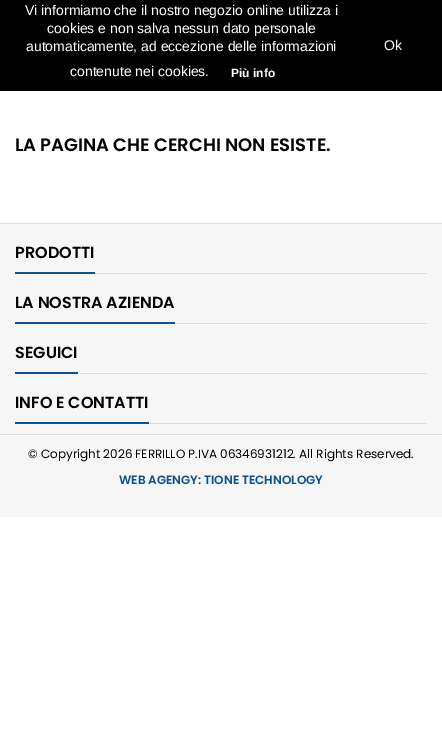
%!PS-Adobe-3.0
%%BoundingBox: 0 0 442 740
%%LanguageLevel: 3
%%Pages: 1
%%EndComments
%%BeginProlog
%%EndProlog
%%BeginSetup
<< /PageSize [442 740] >> setpagedevice
%%EndSetup
%%Page: 1 1
0 740 translate 1 -1 scale
4 setmiterlimit
1 setgray
0 0 442 740 rectfill
0.965 setgray
0 224 442 210 rectfill
0.867 setgray
0 223 442 1 rectfill
0 setgray
0 0 442 91 rectfill
0.867 setgray
95 273 332 1 rectfill
0.059 0.322 0.565 setrgbcolor
15 272 80 2 rectfill
0.867 setgray
175 323 252 1 rectfill
0.059 0.322 0.565 setrgbcolor
15 322 160 2 rectfill
0.867 setgray
78 373 349 1 rectfill
0.059 0.322 0.565 setrgbcolor
15 372 63 2 rectfill
0.867 setgray
149 423 278 1 rectfill
0.059 0.322 0.565 setrgbcolor
15 422 134 2 rectfill
0.965 setgray
0 435 442 82 rectfill
0.867 setgray
0 434 442 1 rectfill
/LiberationSans-Regular [14 0 0 -14 0 0] selectfont
1 setgray
25 15 moveto (Vi informiamo che il nostro negozio online utilizza i) show
47 33 moveto (cookies e non salva nessun dato personale) show
26 51 moveto (automaticamente, ad eccezione delle informazioni) show
70 76 moveto (contenute nei cookies.) show
/LiberationSans-Bold [12 0 0 -12 0 0] selectfont
231 77 moveto (Più info) show
/LiberationSans-Regular [14 0 0 -14 0 0] selectfont
384 50 moveto (Ok) show
/Poppins-SemiBold [16 0 0 -16 0 0] selectfont
0 setgray
15 258 moveto (PRODOTTI) show
15 308 moveto (LA NOSTRA AZIENDA) show
15 358 moveto (SEGUICI) show
15 408 moveto (INFO E CONTATTI) show
/Poppins-Regular [12 0 0 -12 0 0] selectfont
28 458 moveto (© Copyright 2026 FERRILLO P.IVA 06346931212. All Rights Reserved.) show
/Poppins-SemiBold [12 0 0 -12 0 0] selectfont
0.059 0.322 0.565 setrgbcolor
119 484 moveto (WEB AGENGY: TIONE TECHNOLOGY) show
/Poppins-SemiBold [18 0 0 -18 0 0] selectfont
0 setgray
15 151 moveto (LA PAGINA CHE CERCHI NON ESISTE.) show
showpage
%%EOF
